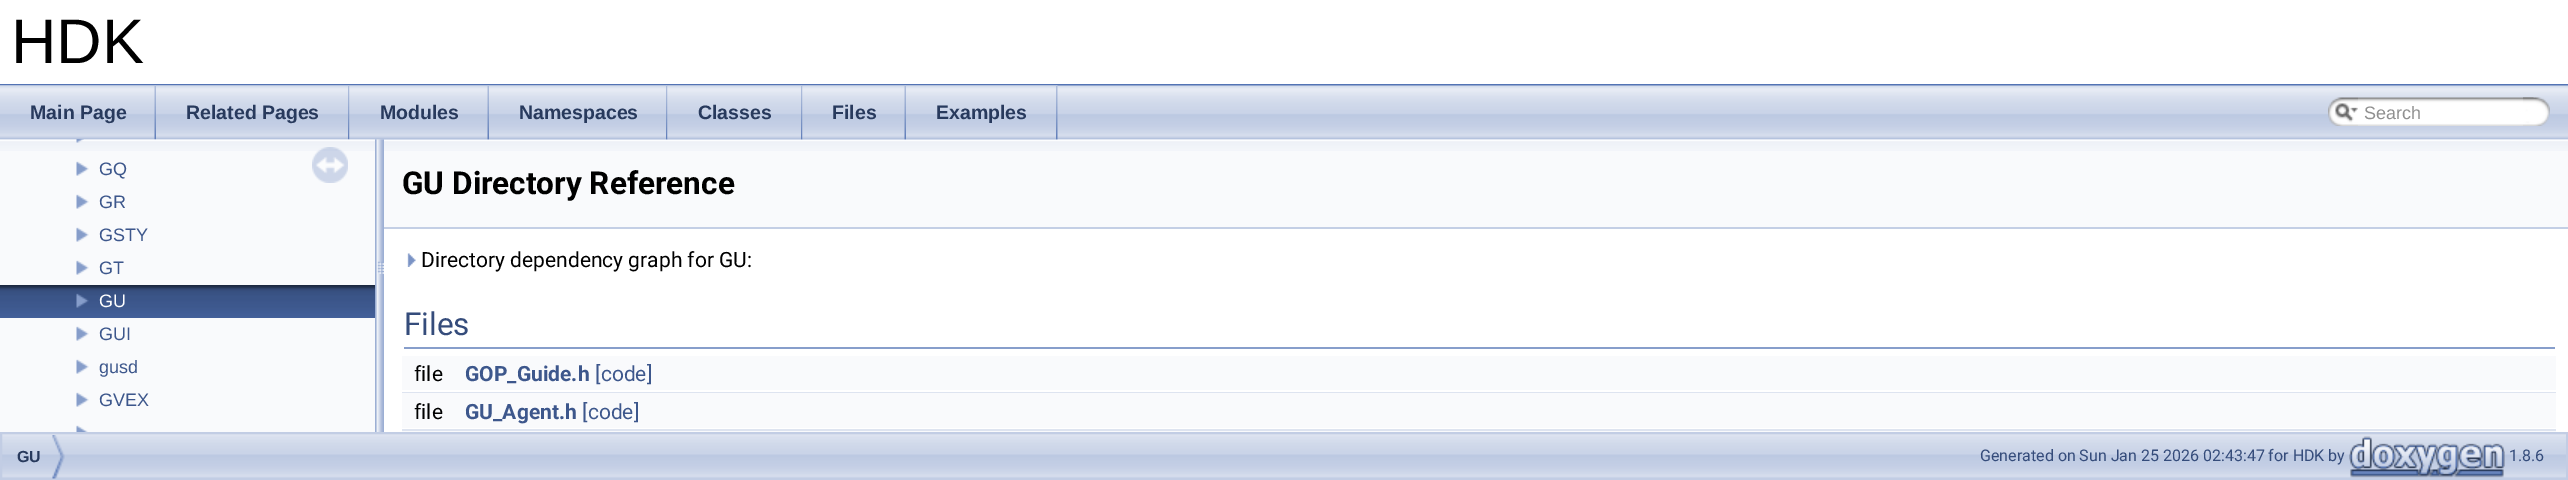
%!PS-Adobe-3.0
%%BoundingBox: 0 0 2568 480
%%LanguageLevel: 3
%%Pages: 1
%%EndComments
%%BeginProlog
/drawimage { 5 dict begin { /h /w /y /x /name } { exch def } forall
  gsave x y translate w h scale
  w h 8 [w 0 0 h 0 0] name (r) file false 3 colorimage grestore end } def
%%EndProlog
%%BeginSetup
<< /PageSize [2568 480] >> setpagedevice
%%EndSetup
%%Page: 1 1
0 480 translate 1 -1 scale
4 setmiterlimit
1 setgray
0 0 2568 480 rectfill
0.325 0.451 0.706 setrgbcolor
0 84 2568 2 rectfill
(images/1.raw) 0 85 2568 55 drawimage
(images/2.raw) 0 85 156 55 drawimage
(images/3.raw) 154 86 2 54 drawimage
(images/4.raw) 156 85 194 55 drawimage
(images/5.raw) 348 86 2 54 drawimage
(images/6.raw) 349 85 140 55 drawimage
(images/3.raw) 487 86 2 54 drawimage
(images/7.raw) 489 85 179 55 drawimage
(images/5.raw) 666 86 2 54 drawimage
(images/8.raw) 667 85 136 55 drawimage
(images/5.raw) 801 86 2 54 drawimage
(images/9.raw) 802 85 104 55 drawimage
(images/3.raw) 904 86 2 54 drawimage
(images/10.raw) 906 85 152 55 drawimage
(images/5.raw) 1056 86 2 54 drawimage
(images/11.raw) 2328 97 30 29 drawimage
(images/12.raw) 2335 103 23 19 drawimage
(images/13.raw) 2358 97 176 29 drawimage
(images/14.raw) 2523 97 27 29 drawimage
0.976 0.98 0.988 setrgbcolor
0 151 375 281 rectfill
(images/15.raw) 0 139 375 12 drawimage
(images/16.raw) 76 139 8 4 drawimage
(images/17.raw) 76 161 13 15 drawimage
(images/17.raw) 76 194 13 15 drawimage
(images/17.raw) 76 227 13 15 drawimage
(images/17.raw) 76 260 13 15 drawimage
(images/18.raw) 0 285 375 33 drawimage
(images/19.raw) 76 293 13 15 drawimage
(images/17.raw) 76 326 13 15 drawimage
(images/17.raw) 76 359 13 15 drawimage
(images/17.raw) 76 392 13 15 drawimage
(images/20.raw) 76 425 12 7 drawimage
(images/21.raw) 312 147 36 36 drawimage
(images/22.raw) 375 139 9 293 drawimage
384 151 2184 76 rectfill
(images/23.raw) 384 139 2184 12 drawimage
0.769 0.812 0.898 setrgbcolor
384 227 2184 2 rectfill
(images/24.raw) 407 253 9 14 drawimage
0.529 0.62 0.796 setrgbcolor
404 347 2151 2 rectfill
0.976 0.98 0.988 setrgbcolor
402 356 2154 34 rectfill
0.871 0.894 0.941 setrgbcolor
402 392 2154 1 rectfill
0.976 0.98 0.988 setrgbcolor
402 393 2154 35 rectfill
0.871 0.894 0.941 setrgbcolor
402 429 2154 2 rectfill
0.976 0.98 0.988 setrgbcolor
402 431 2154 1 rectfill
(images/25.raw) 2 434 2564 44 drawimage
0.761 0.804 0.894 setrgbcolor
2 setlinewidth
1 433 2566 46 rectstroke
(images/26.raw) 52 435 13 44 drawimage
(images/27.raw) 2349 436 156 42 drawimage
/LiberationSans-Regular [63 0 0 -63 0 0] selectfont
0 setgray
11 63 moveto (HDK) show
/LiberationSans-Bold [19.5 0 0 -19.5 0 0] selectfont
0.157 0.227 0.365 setrgbcolor
30 119 moveto (Main Page) show
186 119 moveto (Related Pages) show
380 119 moveto (Modules) show
519 119 moveto (Namespaces) show
698 119 moveto (Classes) show
832 119 moveto (Files) show
936 119 moveto (Examples) show
/LiberationSans-Regular [18 0 0 -18 0 0] selectfont
0.565 setgray
2364 119 moveto (Search) show
0.239 0.341 0.549 setrgbcolor
99 175 moveto (GQ) show
99 208 moveto (GR) show
99 241 moveto (GSTY) show
99 274 moveto (GT) show
1 setgray
99 307 moveto (GU) show
0.239 0.341 0.549 setrgbcolor
99 340 moveto (GUI) show
99 373 moveto (gusd) show
99 406 moveto (GVEX) show
/Roboto-Bold [31.5 0 0 -31.5 0 0] selectfont
0 setgray
402 194 moveto (GU Directory Reference) show
/Roboto-Regular [21 0 0 -21 0 0] selectfont
421 267 moveto (Directory dependency graph for GU:) show
/Roboto-Regular [31.5 0 0 -31.5 0 0] selectfont
0.208 0.298 0.482 setrgbcolor
404 335 moveto (Files) show
/Roboto-Regular [21 0 0 -21 0 0] selectfont
0 setgray
414 381 moveto (file) show
/Roboto-Bold [21 0 0 -21 0 0] selectfont
0.239 0.341 0.549 setrgbcolor
465 381 moveto (GOP_Guide.h) show
/Roboto-Regular [21 0 0 -21 0 0] selectfont
595 381 moveto ([code]) show
0 setgray
414 419 moveto (file) show
/Roboto-Bold [21 0 0 -21 0 0] selectfont
0.239 0.341 0.549 setrgbcolor
465 419 moveto (GU_Agent.h) show
/Roboto-Regular [21 0 0 -21 0 0] selectfont
582 419 moveto ([code]) show
/LiberationSans-Bold [16 0 0 -16 0 0] selectfont
0.157 0.227 0.365 setrgbcolor
17 462 moveto (GU) show
/Roboto-Regular [16 0 0 -16 0 0] selectfont
0.208 0.298 0.482 setrgbcolor
1980 461 moveto (Generated on Sun Jan 25 2026 02:43:47 for HDK by) show
2509 461 moveto (1.8.6) show
showpage
%%EOF
